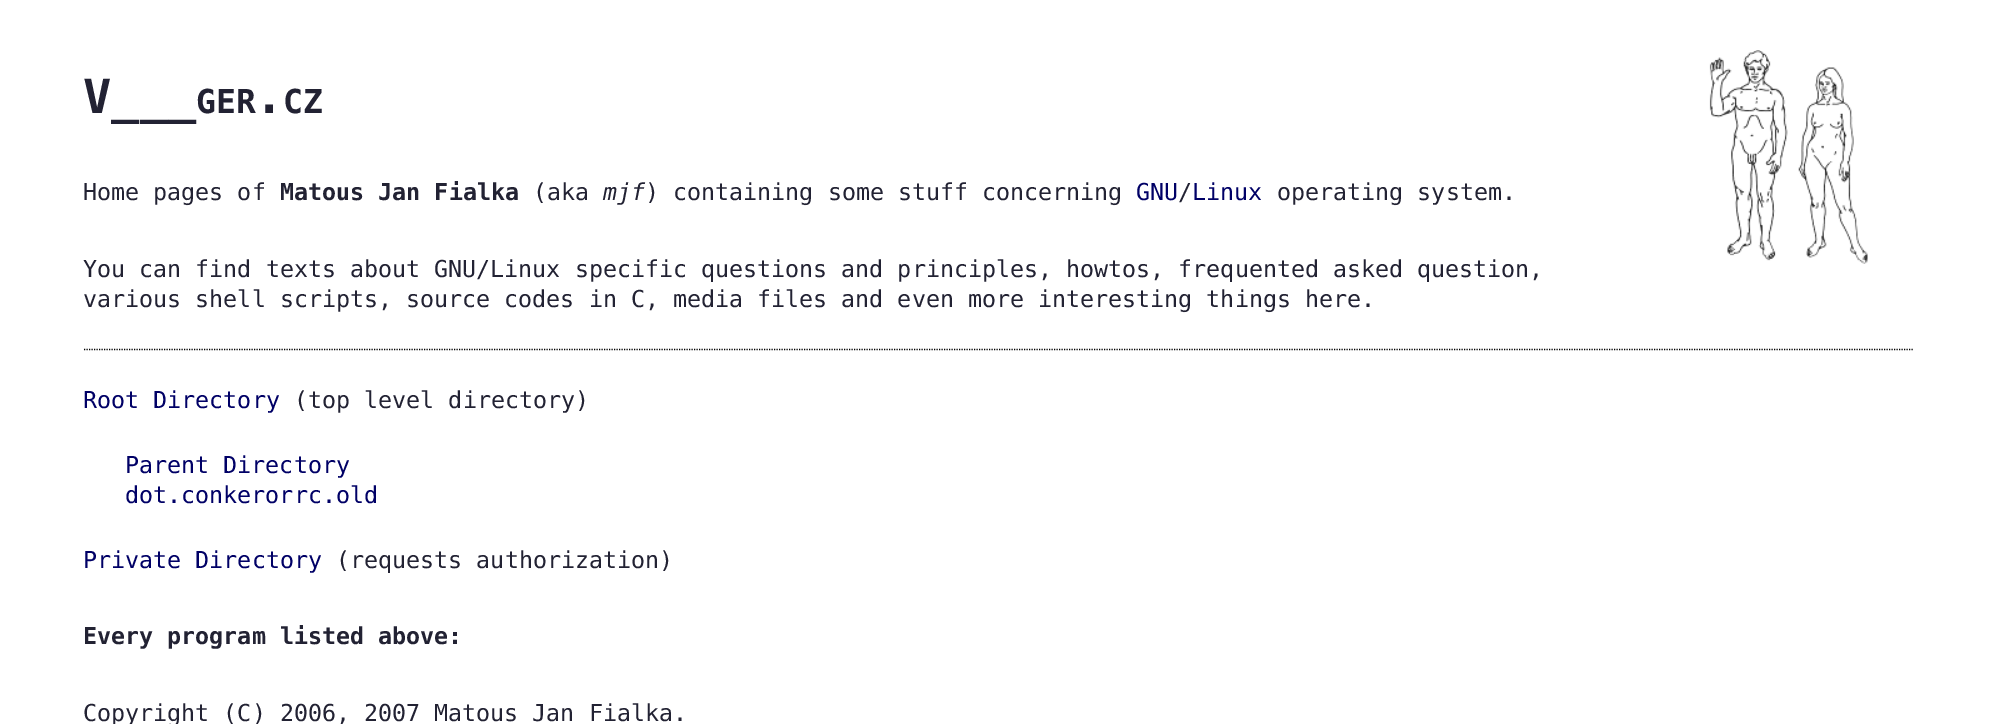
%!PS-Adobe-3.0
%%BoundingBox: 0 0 1997 724
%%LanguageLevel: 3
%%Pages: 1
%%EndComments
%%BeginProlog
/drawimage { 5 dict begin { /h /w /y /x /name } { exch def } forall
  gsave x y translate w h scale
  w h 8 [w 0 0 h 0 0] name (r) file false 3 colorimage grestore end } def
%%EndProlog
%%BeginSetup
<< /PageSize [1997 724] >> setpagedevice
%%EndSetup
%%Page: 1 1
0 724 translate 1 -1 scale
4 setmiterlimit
1 setgray
0 0 1997 724 rectfill
(images/1.raw) 1709 50 159 214 drawimage
0 setgray
1.2 setlinewidth
[1.25 1.25] 0 setdash
newpath 84 349.5 moveto 1914 349.5 lineto stroke
/DejaVuSansMono-Bold [47 0 0 -47 0 0] selectfont
0.133 0.133 0.2 setrgbcolor
83 113 moveto (V___) show
/DejaVuSansMono-Bold [33 0 0 -33 0 0] selectfont
196 113 moveto (GER) show
/DejaVuSansMono-Bold [47 0 0 -47 0 0] selectfont
255 113 moveto (.) show
/DejaVuSansMono-Bold [33 0 0 -33 0 0] selectfont
283 113 moveto (CZ) show
/DejaVuSansMono-Regular [23.33 0 0 -23.33 0 0] selectfont
83 200 moveto (Home pages of) show
/DejaVuSansMono-Bold [23.33 0 0 -23.33 0 0] selectfont
280 200 moveto (Matous Jan Fialka) show
/DejaVuSansMono-Regular [23.33 0 0 -23.33 0 0] selectfont
533 200 moveto (\(aka) show
/DejaVuSansMono-Italic [23.33 0 0 -23.33 0 0] selectfont
603 200 moveto (mjf) show
/DejaVuSansMono-Regular [23.33 0 0 -23.33 0 0] selectfont
645 200 moveto (\) containing some stuff concerning) show
0 0 0.4 setrgbcolor
1136 200 moveto (GNU Linux) show
0.133 0.133 0.2 setrgbcolor
1277 200 moveto (operating system.) show
1178 200 moveto (/) show
83 277 moveto (You can find texts about GNU/Linux specific questions and principles, howtos, frequented asked question,) show
83 307 moveto (various shell scripts, source codes in C, media files and even more interesting things here.) show
0 0 0.4 setrgbcolor
83 408 moveto (Root Directory) show
0.133 0.133 0.2 setrgbcolor
294 408 moveto (\(top level directory\)) show
0 0 0.4 setrgbcolor
125 473 moveto (Parent Directory) show
125 503 moveto (dot.conkerorrc.old) show
83 568 moveto (Private Directory) show
0.133 0.133 0.2 setrgbcolor
336 568 moveto (\(requests authorization\)) show
/DejaVuSansMono-Bold [23.33 0 0 -23.33 0 0] selectfont
83 644 moveto (Every program listed above:) show
/DejaVuSansMono-Regular [23.33 0 0 -23.33 0 0] selectfont
83 721 moveto (Copyright \(C\) 2006, 2007 Matous Jan Fialka.) show
showpage
%%EOF
